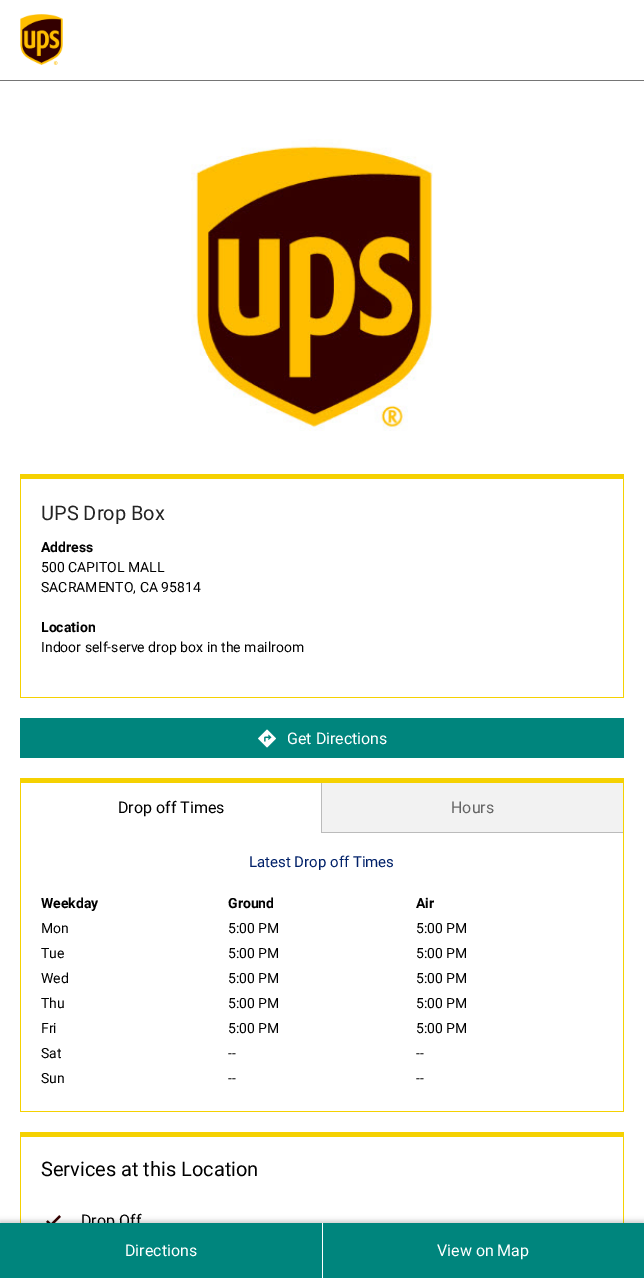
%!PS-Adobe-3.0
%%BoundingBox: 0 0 644 1278
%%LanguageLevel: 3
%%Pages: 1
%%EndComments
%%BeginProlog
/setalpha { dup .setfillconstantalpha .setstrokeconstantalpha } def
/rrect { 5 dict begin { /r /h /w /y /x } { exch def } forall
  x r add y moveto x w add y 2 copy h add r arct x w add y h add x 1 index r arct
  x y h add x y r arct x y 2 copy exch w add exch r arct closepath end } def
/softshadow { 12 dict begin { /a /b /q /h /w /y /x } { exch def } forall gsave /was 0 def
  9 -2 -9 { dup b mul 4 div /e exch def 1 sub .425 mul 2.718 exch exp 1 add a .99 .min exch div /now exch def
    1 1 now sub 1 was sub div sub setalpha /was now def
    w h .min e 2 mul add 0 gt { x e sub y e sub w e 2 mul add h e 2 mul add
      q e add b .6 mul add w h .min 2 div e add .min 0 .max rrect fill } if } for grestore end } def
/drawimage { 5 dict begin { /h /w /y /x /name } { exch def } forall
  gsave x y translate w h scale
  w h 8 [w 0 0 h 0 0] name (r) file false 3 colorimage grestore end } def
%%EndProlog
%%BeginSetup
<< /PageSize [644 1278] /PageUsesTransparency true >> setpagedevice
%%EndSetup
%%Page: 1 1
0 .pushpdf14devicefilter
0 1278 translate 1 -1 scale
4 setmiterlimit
1 setgray
0 0 644 1278 rectfill
0.459 setgray
0 80 644 1 rectfill
(images/1.raw) 20 14 43 51 drawimage
(images/2.raw) 191 139 242 292 drawimage
0.961 0.82 0.004 setrgbcolor
20 474 604 5 rectfill
623 474 1 224 rectfill
20 697 604 1 rectfill
20 474 1 224 rectfill
0 0.522 0.49 setrgbcolor
20 718 604 40 rectfill
(images/3.raw) 258 729 18 19 drawimage
0.961 0.82 0.004 setrgbcolor
20 778 604 5 rectfill
623 778 1 334 rectfill
20 1111 604 1 rectfill
20 778 1 334 rectfill
0.733 setgray
321 783 1 50 rectfill
0.949 setgray
322 783 301 49 rectfill
0.733 setgray
322 832 301 1 rectfill
0.961 0.82 0.004 setrgbcolor
20 1132 604 5 rectfill
623 1132 1 91 rectfill
20 1132 1 91 rectfill
(images/4.raw) 46 1215 15 8 drawimage
0 setgray
0 1221 644 55 0 2.5 0.2 softshadow
0 0.522 0.49 setrgbcolor
323 1223 321 55 rectfill
1 setgray
322 1223 1 55 rectfill
/Roboto-Regular [20 0 0 -20 0 0] selectfont
0.141 setgray
41 520 moveto (UPS Drop Box) show
/Roboto-Bold [14 0 0 -14 0 0] selectfont
0 setgray
41 552 moveto (Address) show
/Roboto-Regular [14 0 0 -14 0 0] selectfont
41 572 moveto (500 CAPITOL MALL) show
41 592 moveto (SACRAMENTO, CA 95814) show
/Roboto-Bold [14 0 0 -14 0 0] selectfont
41 632 moveto (Location) show
/Roboto-Regular [14 0 0 -14 0 0] selectfont
41 652 moveto (Indoor self-serve drop box in the mailroom) show
/Roboto-Regular [16 0 0 -16 0 0] selectfont
1 setgray
287 744 moveto (Get Directions) show
0 setgray
118 813 moveto (Drop off Times) show
0.4 setgray
451 813 moveto (Hours) show
/Roboto-Regular [15 0 0 -15 0 0] selectfont
0.004 0.129 0.412 setrgbcolor
249 867 moveto (Latest Drop off Times) show
/Roboto-Bold [14 0 0 -14 0 0] selectfont
0 setgray
41 908 moveto (Weekday) show
228 908 moveto (Ground) show
416 908 moveto (Air) show
/Roboto-Regular [14 0 0 -14 0 0] selectfont
41 933 moveto (Mon) show
228 933 moveto (5:00 PM) show
416 933 moveto (5:00 PM) show
41 958 moveto (Tue) show
228 958 moveto (5:00 PM) show
416 958 moveto (5:00 PM) show
41 983 moveto (Wed) show
228 983 moveto (5:00 PM) show
416 983 moveto (5:00 PM) show
41 1008 moveto (Thu) show
228 1008 moveto (5:00 PM) show
416 1008 moveto (5:00 PM) show
41 1033 moveto (Fri) show
228 1033 moveto (5:00 PM) show
416 1033 moveto (5:00 PM) show
41 1058 moveto (Sat) show
228 1058 moveto (--) show
416 1058 moveto (--) show
41 1083 moveto (Sun) show
228 1083 moveto (--) show
416 1083 moveto (--) show
/Roboto-Regular [20 0 0 -20 0 0] selectfont
41 1176 moveto (Services at this Location) show
/Roboto-Regular [16 0 0 -16 0 0] selectfont
81 1226 moveto (Drop Off) show
0 0.522 0.49 setrgbcolor
0 1223 322 55 rectfill
1 setgray
125 1256 moveto (Directions) show
437 1256 moveto (View on Map) show
.poppdf14devicefilter showpage
%%EOF
